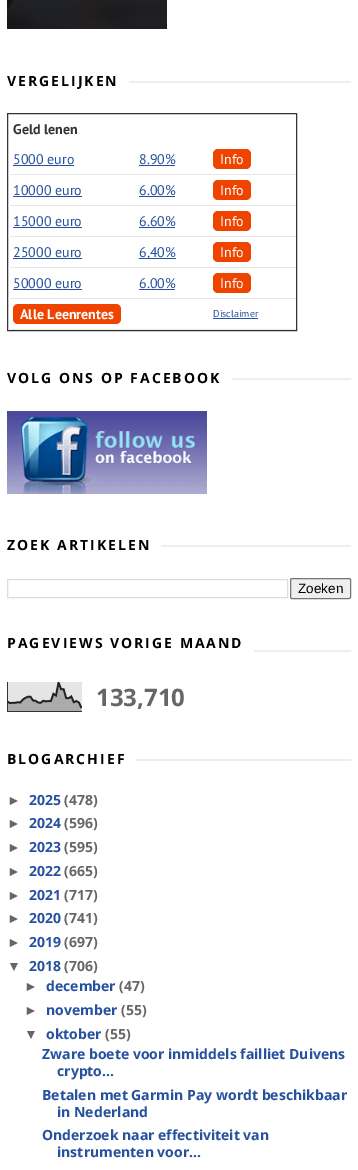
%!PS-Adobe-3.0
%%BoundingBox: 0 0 358 1170
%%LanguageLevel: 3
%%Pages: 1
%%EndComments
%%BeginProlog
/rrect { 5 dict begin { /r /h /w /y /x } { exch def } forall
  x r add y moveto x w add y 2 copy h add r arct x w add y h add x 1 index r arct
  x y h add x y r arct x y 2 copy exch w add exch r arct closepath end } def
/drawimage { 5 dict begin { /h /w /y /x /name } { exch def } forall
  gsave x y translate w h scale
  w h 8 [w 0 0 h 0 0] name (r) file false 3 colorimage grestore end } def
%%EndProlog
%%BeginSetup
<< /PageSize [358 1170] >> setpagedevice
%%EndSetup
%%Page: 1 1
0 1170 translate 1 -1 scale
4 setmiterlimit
1 setgray
0 0 358 1170 rectfill
(images/1.raw) 7 0 160 29 drawimage
0.933 setgray
129 81 222 2 rectfill
0.2 setgray
7.5 113.5 289 217 rectstroke
0.902 setgray
8 174 288 1 rectfill
0.149 0.318 0.62 setrgbcolor
13 165 61 1 rectfill
139 165 36 1 rectfill
0.933 0.267 0 setrgbcolor
213 149 38 20 5 rrect fill
0.902 setgray
8 205 288 1 rectfill
0.149 0.318 0.62 setrgbcolor
13 196 69 1 rectfill
139 196 36 1 rectfill
0.933 0.267 0 setrgbcolor
213 180 38 20 5 rrect fill
0.902 setgray
8 236 288 1 rectfill
0.149 0.318 0.62 setrgbcolor
13 227 69 1 rectfill
139 227 36 1 rectfill
0.933 0.267 0 setrgbcolor
213 211 38 20 5 rrect fill
0.902 setgray
8 267 288 1 rectfill
0.149 0.318 0.62 setrgbcolor
13 258 69 1 rectfill
139 258 37 1 rectfill
0.933 0.267 0 setrgbcolor
213 242 38 20 5 rrect fill
0.902 setgray
8 298 288 1 rectfill
0.149 0.318 0.62 setrgbcolor
13 289 69 1 rectfill
139 289 36 1 rectfill
0.933 0.267 0 setrgbcolor
213 273 38 20 5 rrect fill
0.902 setgray
8 329 288 1 rectfill
0.933 0.267 0 setrgbcolor
13 304 108 20 5 rrect fill
0.149 0.318 0.62 setrgbcolor
213 318 45 1 rectfill
0.933 setgray
232 378 119 2 rectfill
(images/2.raw) 7 411 200 83 drawimage
161 545 190 2 rectfill
0.867 setgray
7.5 579.5 280 18 rectstroke
0.937 setgray
290.5 578.5 60 20 1.5 rrect gsave fill grestore
0.463 setgray
stroke
0.933 setgray
254 650 97 2 rectfill
(images/3.raw) 7 682 75 30 drawimage
136 759 215 2 rectfill
/OpenSans-Bold [14 0 0 -14 0 0] selectfont
0 setgray
7 86 moveto 2 0 (VERGELIJKEN) ashow
/PTSans-Bold [14 0 0 -14 0 0] selectfont
0.2 setgray
13 134 moveto (Geld lenen) show
/PTSans-Regular [14 0 0 -14 0 0] selectfont
0.149 0.318 0.62 setrgbcolor
13 164 moveto (5000 euro) show
139 164 moveto (8.90%) show
1 setgray
220 164 moveto (Info) show
0.149 0.318 0.62 setrgbcolor
13 195 moveto (10000 euro) show
139 195 moveto (6.00%) show
1 setgray
220 195 moveto (Info) show
0.149 0.318 0.62 setrgbcolor
13 226 moveto (15000 euro) show
139 226 moveto (6.60%) show
1 setgray
220 226 moveto (Info) show
0.149 0.318 0.62 setrgbcolor
13 257 moveto (25000 euro) show
139 257 moveto (6,40%) show
1 setgray
220 257 moveto (Info) show
0.149 0.318 0.62 setrgbcolor
13 288 moveto (50000 euro) show
139 288 moveto (6.00%) show
1 setgray
220 288 moveto (Info) show
/PTSans-Bold [14 0 0 -14 0 0] selectfont
20 319 moveto (Alle Leenrentes) show
/PTSans-Regular [10 0 0 -10 0 0] selectfont
0.149 0.318 0.62 setrgbcolor
213 317 moveto (Disclaimer) show
/OpenSans-Bold [14 0 0 -14 0 0] selectfont
0 setgray
7 383 moveto 2 0 (VOLG ONS OP FACEBOOK) ashow
7 550 moveto 2 0 (ZOEK ARTIKELEN) ashow
/LiberationSans-Regular [13.5 0 0 -13.5 0 0] selectfont
298 593 moveto (Zoeken) show
/OpenSans-Bold [14 0 0 -14 0 0] selectfont
7 648 moveto 2 0 (PAGEVIEWS VORIGE MAAND) ashow
/OpenSans-Bold [24 0 0 -24 0 0] selectfont
0.4 setgray
96 706 moveto (133,710) show
/OpenSans-Bold [14 0 0 -14 0 0] selectfont
0 setgray
7 764 moveto 2 0 (BLOGARCHIEF) ashow
/LiberationSans-Bold [14 0 0 -14 0 0] selectfont
0.4 setgray
7 805 moveto (►) show
/OpenSans-Bold [14 0 0 -14 0 0] selectfont
0.149 0.318 0.62 setrgbcolor
29 805 moveto (2025) show
0.4 setgray
64 805 moveto (\(478\)) show
/LiberationSans-Bold [14 0 0 -14 0 0] selectfont
7 828 moveto (►) show
/OpenSans-Bold [14 0 0 -14 0 0] selectfont
0.149 0.318 0.62 setrgbcolor
29 828 moveto (2024) show
0.4 setgray
64 828 moveto (\(596\)) show
/LiberationSans-Bold [14 0 0 -14 0 0] selectfont
7 852 moveto (►) show
/OpenSans-Bold [14 0 0 -14 0 0] selectfont
0.149 0.318 0.62 setrgbcolor
29 852 moveto (2023) show
0.4 setgray
64 852 moveto (\(595\)) show
/LiberationSans-Bold [14 0 0 -14 0 0] selectfont
7 876 moveto (►) show
/OpenSans-Bold [14 0 0 -14 0 0] selectfont
0.149 0.318 0.62 setrgbcolor
29 876 moveto (2022) show
0.4 setgray
64 876 moveto (\(665\)) show
/LiberationSans-Bold [14 0 0 -14 0 0] selectfont
7 900 moveto (►) show
/OpenSans-Bold [14 0 0 -14 0 0] selectfont
0.149 0.318 0.62 setrgbcolor
29 900 moveto (2021) show
0.4 setgray
64 900 moveto (\(717\)) show
/LiberationSans-Bold [14 0 0 -14 0 0] selectfont
7 923 moveto (►) show
/OpenSans-Bold [14 0 0 -14 0 0] selectfont
0.149 0.318 0.62 setrgbcolor
29 923 moveto (2020) show
0.4 setgray
64 923 moveto (\(741\)) show
/LiberationSans-Bold [14 0 0 -14 0 0] selectfont
7 947 moveto (►) show
/OpenSans-Bold [14 0 0 -14 0 0] selectfont
0.149 0.318 0.62 setrgbcolor
29 947 moveto (2019) show
0.4 setgray
64 947 moveto (\(697\)) show
/LiberationSans-Bold [14 0 0 -14 0 0] selectfont
7 971 moveto (▼) show
/OpenSans-Bold [14 0 0 -14 0 0] selectfont
0.149 0.318 0.62 setrgbcolor
29 971 moveto (2018) show
0.4 setgray
64 971 moveto (\(706\)) show
/LiberationSans-Bold [14 0 0 -14 0 0] selectfont
24 991 moveto (►) show
/OpenSans-Bold [14 0 0 -14 0 0] selectfont
0.149 0.318 0.62 setrgbcolor
46 991 moveto (december) show
0.4 setgray
119 991 moveto (\(47\)) show
/LiberationSans-Bold [14 0 0 -14 0 0] selectfont
24 1015 moveto (►) show
/OpenSans-Bold [14 0 0 -14 0 0] selectfont
0.149 0.318 0.62 setrgbcolor
46 1015 moveto (november) show
0.4 setgray
121 1015 moveto (\(55\)) show
/LiberationSans-Bold [14 0 0 -14 0 0] selectfont
24 1039 moveto (▼) show
/OpenSans-Bold [14 0 0 -14 0 0] selectfont
0.149 0.318 0.62 setrgbcolor
46 1039 moveto (oktober) show
0.4 setgray
105 1039 moveto (\(55\)) show
0.149 0.318 0.62 setrgbcolor
42 1059 moveto (Zware boete voor inmiddels failliet Duivens) show
57 1076 moveto (crypto...) show
42 1100 moveto (Betalen met Garmin Pay wordt beschikbaar) show
57 1117 moveto (in Nederland) show
42 1140 moveto (Onderzoek naar effectiviteit van) show
57 1157 moveto (instrumenten voor...) show
showpage
%%EOF
